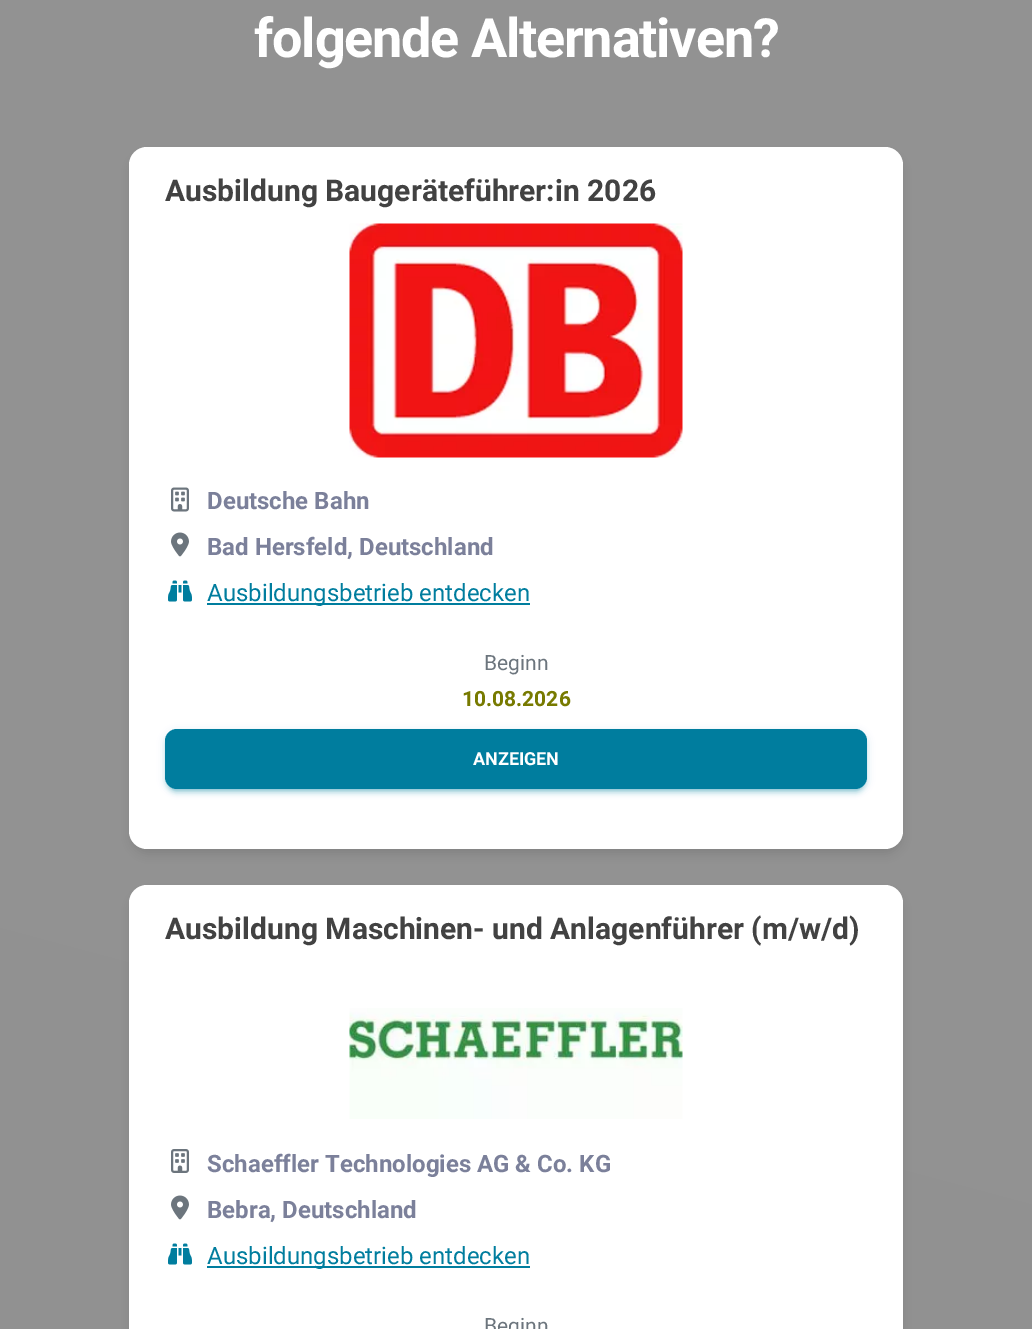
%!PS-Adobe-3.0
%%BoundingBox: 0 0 1032 1329
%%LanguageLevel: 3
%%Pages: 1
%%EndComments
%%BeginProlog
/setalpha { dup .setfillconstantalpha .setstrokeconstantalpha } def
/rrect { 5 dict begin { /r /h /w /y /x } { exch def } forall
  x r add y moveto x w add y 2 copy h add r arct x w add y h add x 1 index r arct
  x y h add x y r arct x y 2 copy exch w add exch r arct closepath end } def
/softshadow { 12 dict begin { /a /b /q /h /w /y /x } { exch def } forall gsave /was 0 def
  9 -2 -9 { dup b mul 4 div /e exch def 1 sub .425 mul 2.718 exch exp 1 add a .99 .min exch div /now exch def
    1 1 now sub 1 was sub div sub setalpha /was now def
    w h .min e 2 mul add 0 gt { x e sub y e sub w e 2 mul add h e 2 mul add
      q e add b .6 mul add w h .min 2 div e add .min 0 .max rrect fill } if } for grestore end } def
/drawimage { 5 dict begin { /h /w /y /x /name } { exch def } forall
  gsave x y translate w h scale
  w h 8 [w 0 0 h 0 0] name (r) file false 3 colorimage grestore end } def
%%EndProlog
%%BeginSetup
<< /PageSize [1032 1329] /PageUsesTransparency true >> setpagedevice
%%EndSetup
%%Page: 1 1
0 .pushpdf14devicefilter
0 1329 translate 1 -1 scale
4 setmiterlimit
1 setgray
0 0 1032 1329 rectfill
gsave newpath 0 0 moveto 1032 0 lineto 1032 1329 lineto 0 1329 lineto closepath clip newpath
<< /ShadingType 2 /ColorSpace /DeviceRGB /Coords [1004 -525 28 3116] /Extend [true true] /Function << /FunctionType 2 /Domain [0 1] /C0 [0.576 0.576 0.576] /C1 [0.565 0.565 0.565] /N 1 >> >> shfill grestore
0 setgray
131 155 771 699 17 4.5 0.1 softshadow
1 setgray
129 147 774 702 18 rrect fill
(images/1.raw) 349 223 334 235 drawimage
(images/2.raw) 171 487 18 25 drawimage
(images/3.raw) 171 532 18 25 drawimage
(images/4.raw) 168 580 24 22 drawimage
0 0.49 0.62 setrgbcolor
207 603 323 2 rectfill
165 731 702 60 12 4 0.15 softshadow
168 737 696 54 9 1 0.2 softshadow
165 734 702 60 12 2 0.15 softshadow
165 729 702 60 12 rrect fill
0 setgray
131 893 771 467 17 4.5 0.1 softshadow
1 setgray
129 885 774 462 18 rrect fill
(images/5.raw) 349 1008 334 111 drawimage
(images/6.raw) 171 1149 18 24 drawimage
(images/3.raw) 171 1195 18 25 drawimage
(images/4.raw) 168 1243 24 22 drawimage
0 0.49 0.62 setrgbcolor
207 1266 323 2 rectfill
/Roboto-Bold [54 0 0 -54 0 0] selectfont
1 setgray
254 57 moveto -1.2 0 (folgende Alternativen?) ashow
/Roboto-Bold [30 0 0 -30 0 0] selectfont
0.259 setgray
165 201 moveto (Ausbildung Baugeräteführer:in 2026) show
/Roboto-Bold [24 0 0 -24 0 0] selectfont
0.482 0.502 0.604 setrgbcolor
207 509 moveto (Deutsche Bahn) show
207 555 moveto (Bad Hersfeld, Deutschland) show
/Roboto-Regular [24 0 0 -24 0 0] selectfont
0 0.49 0.62 setrgbcolor
207 601 moveto (Ausbildungsbetrieb entdecken) show
/Roboto-Regular [21 0 0 -21 0 0] selectfont
0.424 0.459 0.49 setrgbcolor
484 670 moveto (Beginn) show
/Roboto-Bold [21 0 0 -21 0 0] selectfont
0.467 0.478 0 setrgbcolor
462 706 moveto (10.08.2026) show
/Roboto-Bold [18 0 0 -18 0 0] selectfont
1 setgray
473 765 moveto (ANZEIGEN) show
/Roboto-Bold [30 0 0 -30 0 0] selectfont
0.259 setgray
165 939 moveto (Ausbildung Maschinen- und Anlagenführer \(m/w/d\)) show
/Roboto-Bold [24 0 0 -24 0 0] selectfont
0.482 0.502 0.604 setrgbcolor
207 1172 moveto (Schaeffler Technologies AG & Co. KG) show
207 1218 moveto (Bebra, Deutschland) show
/Roboto-Regular [24 0 0 -24 0 0] selectfont
0 0.49 0.62 setrgbcolor
207 1264 moveto (Ausbildungsbetrieb entdecken) show
/Roboto-Regular [21 0 0 -21 0 0] selectfont
0.424 0.459 0.49 setrgbcolor
484 1333 moveto (Beginn) show
.poppdf14devicefilter showpage
%%EOF
